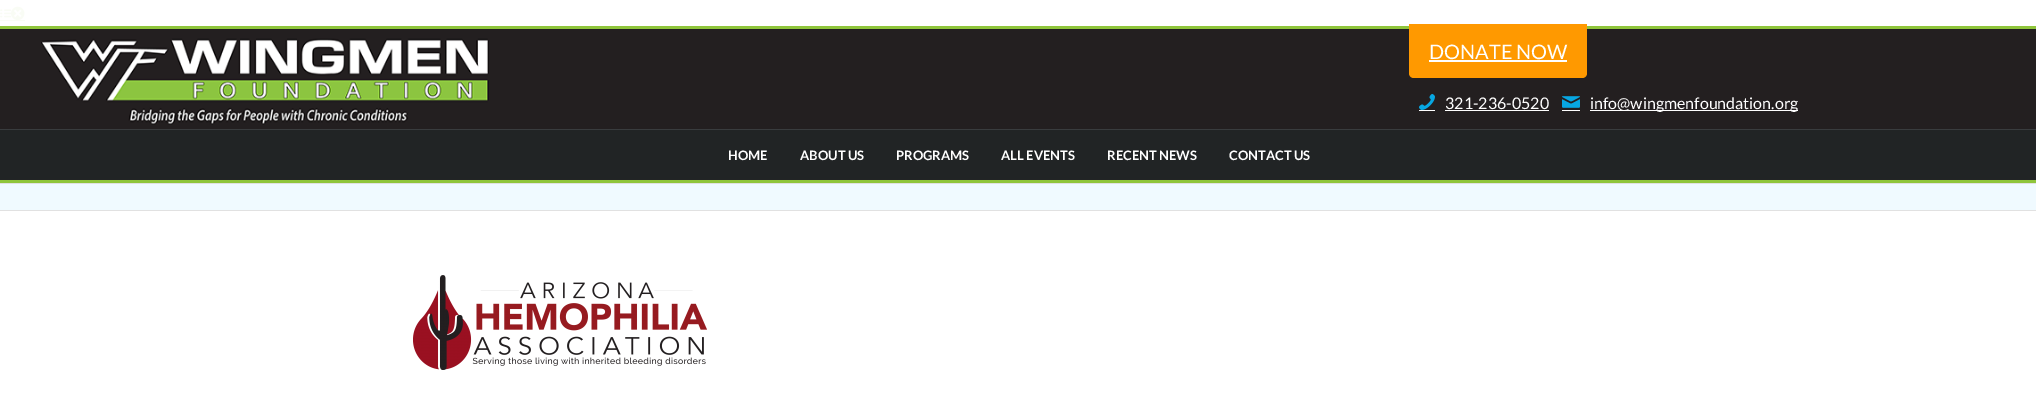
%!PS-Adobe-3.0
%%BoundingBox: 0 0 2036 394
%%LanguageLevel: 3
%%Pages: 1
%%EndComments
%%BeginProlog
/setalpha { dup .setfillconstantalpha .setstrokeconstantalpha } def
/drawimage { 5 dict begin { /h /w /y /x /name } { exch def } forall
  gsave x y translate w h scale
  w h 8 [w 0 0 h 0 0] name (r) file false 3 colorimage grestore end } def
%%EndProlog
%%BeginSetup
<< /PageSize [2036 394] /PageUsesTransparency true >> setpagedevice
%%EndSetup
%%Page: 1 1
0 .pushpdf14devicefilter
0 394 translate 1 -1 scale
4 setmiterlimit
1 setgray
0 0 2036 394 rectfill
(images/1.raw) 0 9 12 9 drawimage
(images/2.raw) 11 6 14 14 drawimage
0.565 0.773 0.231 setrgbcolor
0 20 25 1 rectfill
0.95 setalpha
1 setgray
0 6 25 15 rectfill
1 setalpha
0.137 0.122 0.125 setrgbcolor
0 29 2036 100 rectfill
0.561 0.773 0.231 setrgbcolor
0 26 2036 3 rectfill
0.882 setgray
0 183 2036 1 rectfill
(images/3.raw) 41 38 448 87 drawimage
1 0.6 0 setrgbcolor
newpath 1409 24 moveto 1587 24 lineto 1587 73 lineto 1587 76 1585 78 1582 78 curveto 1414 78 lineto 1411 78 1409 76 1409 73 curveto closepath fill
1 setgray
1429 60 138 2 rectfill
(images/4.raw) 1419 94 16 16 drawimage
1419 110 16 1 rectfill
1445 110 104 1 rectfill
(images/5.raw) 1562 96 18 12 drawimage
1562 110 18 1 rectfill
1590 110 208 1 rectfill
gsave newpath 0 130 moveto 2036 130 lineto 2036 180 lineto 0 180 lineto closepath clip newpath
<< /ShadingType 2 /ColorSpace /DeviceRGB /Coords [1018 130 1018 180] /Extend [true true] /Function << /FunctionType 2 /Domain [0 1] /C0 [0.129 0.141 0.145] /C1 [0.133 0.141 0.145] /N 1 >> >> shfill grestore
0.224 0.235 0.243 setrgbcolor
0 129 2036 1 rectfill
0.561 0.773 0.231 setrgbcolor
0 180 2036 3 rectfill
0.941 0.98 1 setrgbcolor
0 184 2036 26 rectfill
0.882 setgray
0 210 2036 1 rectfill
(images/6.raw) 413 275 294 95 drawimage
/Lato-Regular [20 0 0 -20 0 0] selectfont
1 setgray
1429 59 moveto (DONATE NOW) show
/Lato-Regular [16 0 0 -16 0 0] selectfont
1445 109 moveto (321-236-0520) show
1590 109 moveto (info@wingmenfoundation.org) show
/Lato-Bold [13 0 0 -13 0 0] selectfont
728 160 moveto (HOME) show
800 160 moveto (ABOUT US) show
896 160 moveto (PROGRAMS) show
1001 160 moveto (ALL EVENTS) show
1107 160 moveto (RECENT NEWS) show
1229 160 moveto (CONTACT US) show
.poppdf14devicefilter showpage
%%EOF
